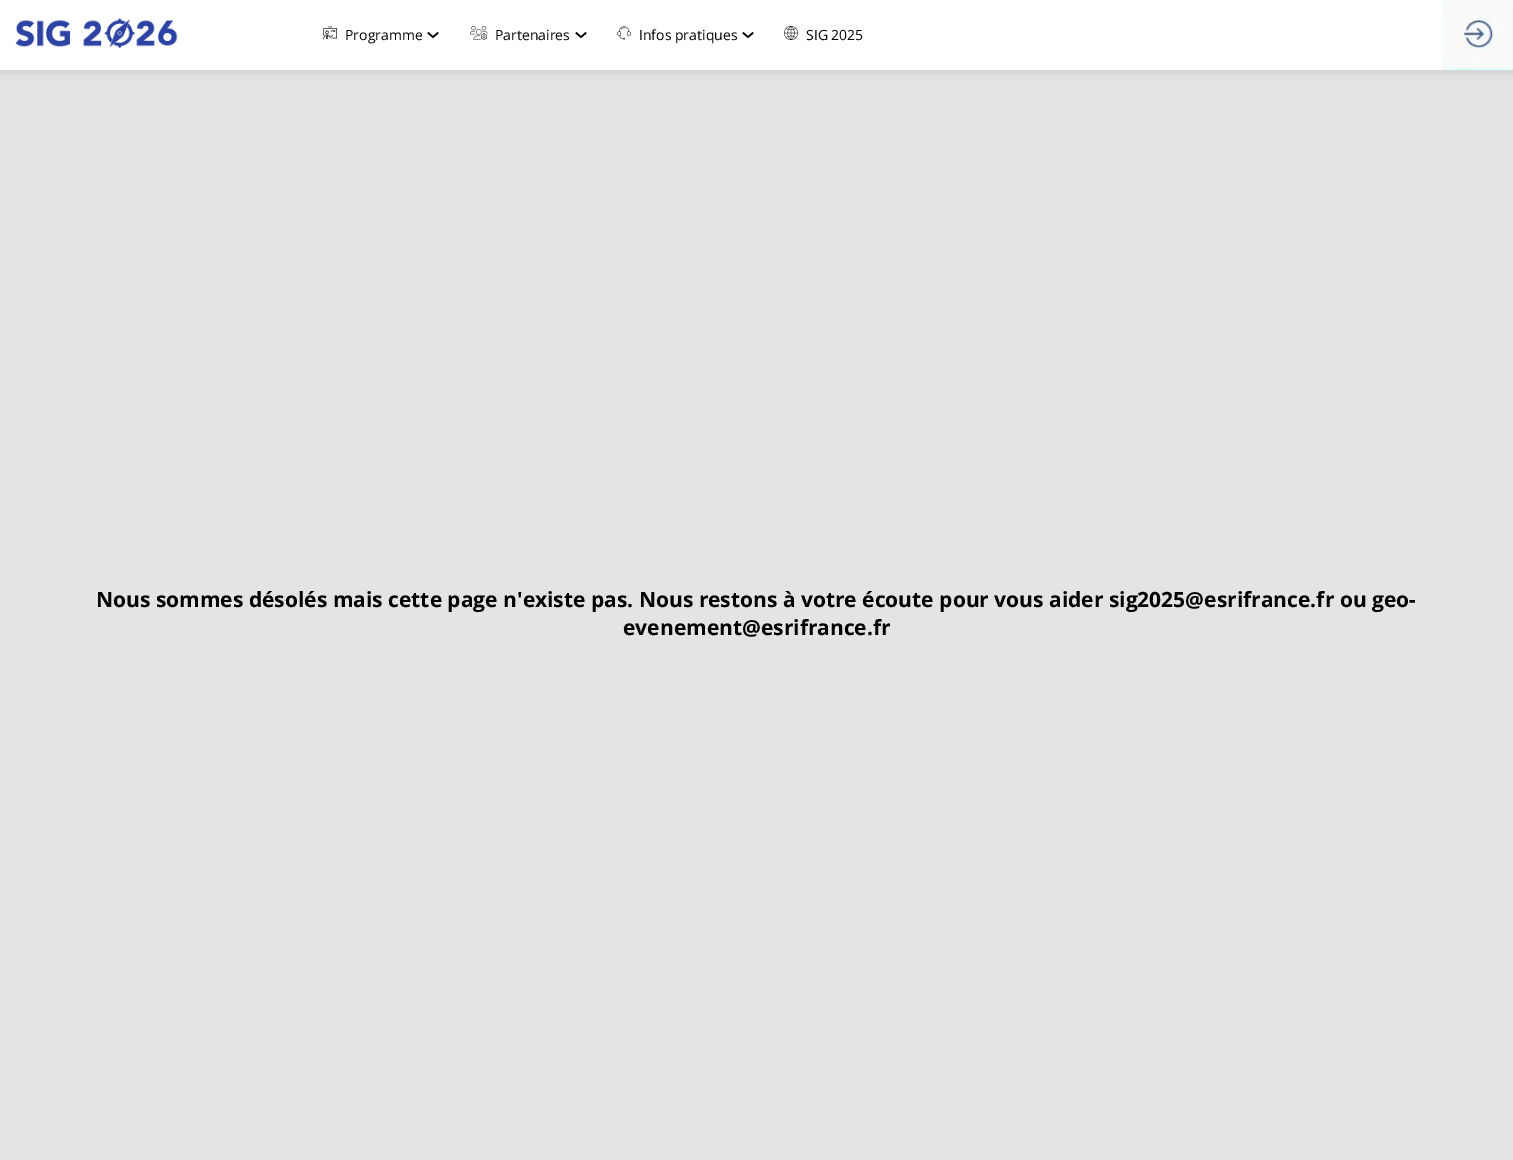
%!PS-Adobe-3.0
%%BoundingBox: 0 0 1513 1160
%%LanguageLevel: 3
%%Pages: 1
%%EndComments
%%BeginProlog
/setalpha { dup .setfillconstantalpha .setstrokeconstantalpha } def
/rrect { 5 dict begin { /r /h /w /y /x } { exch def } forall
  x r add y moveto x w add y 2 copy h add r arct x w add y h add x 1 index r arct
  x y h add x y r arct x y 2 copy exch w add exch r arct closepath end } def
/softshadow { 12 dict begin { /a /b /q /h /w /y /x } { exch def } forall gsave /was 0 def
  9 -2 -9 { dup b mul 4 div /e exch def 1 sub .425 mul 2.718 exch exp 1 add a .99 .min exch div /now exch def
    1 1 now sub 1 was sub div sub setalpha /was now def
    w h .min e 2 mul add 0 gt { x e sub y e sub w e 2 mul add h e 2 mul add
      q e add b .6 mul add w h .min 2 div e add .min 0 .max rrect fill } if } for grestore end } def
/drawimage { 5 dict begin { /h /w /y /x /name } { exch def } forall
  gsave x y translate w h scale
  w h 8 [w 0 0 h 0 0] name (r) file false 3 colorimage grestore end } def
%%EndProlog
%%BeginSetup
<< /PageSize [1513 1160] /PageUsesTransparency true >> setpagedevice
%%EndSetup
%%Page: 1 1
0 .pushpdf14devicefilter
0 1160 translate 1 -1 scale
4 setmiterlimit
0.894 setgray
0 0 1513 1160 rectfill
0 setgray
0 2 1513 70 0 5 0.1 softshadow
1 setgray
0 0 1443 70 rectfill
(images/1.raw) 15 18 163 31 drawimage
(images/2.raw) 323 26 14 14 drawimage
(images/3.raw) 427 31 12 8 drawimage
(images/4.raw) 470 26 18 14 drawimage
(images/3.raw) 575 31 12 8 drawimage
(images/5.raw) 617 26 14 14 drawimage
(images/3.raw) 742 31 12 8 drawimage
(images/6.raw) 784 26 14 14 drawimage
(images/7.raw) 1443 0 70 70 drawimage
/OpenSans-Regular [14 0 0 -14 0 0] selectfont
0 setgray
345 40 moveto (Programme) show
495 40 moveto (Partenaires) show
639 40 moveto (Infos pratiques) show
806 40 moveto (SIG 2025) show
/OpenSans-Bold [21 0 0 -21 0 0] selectfont
96 607 moveto (Nous sommes désolés mais cette page n'existe pas. Nous restons à votre écoute pour vous aider sig2025@esrifrance.fr ou geo-) show
623 635 moveto (evenement@esrifrance.fr) show
.poppdf14devicefilter showpage
%%EOF
